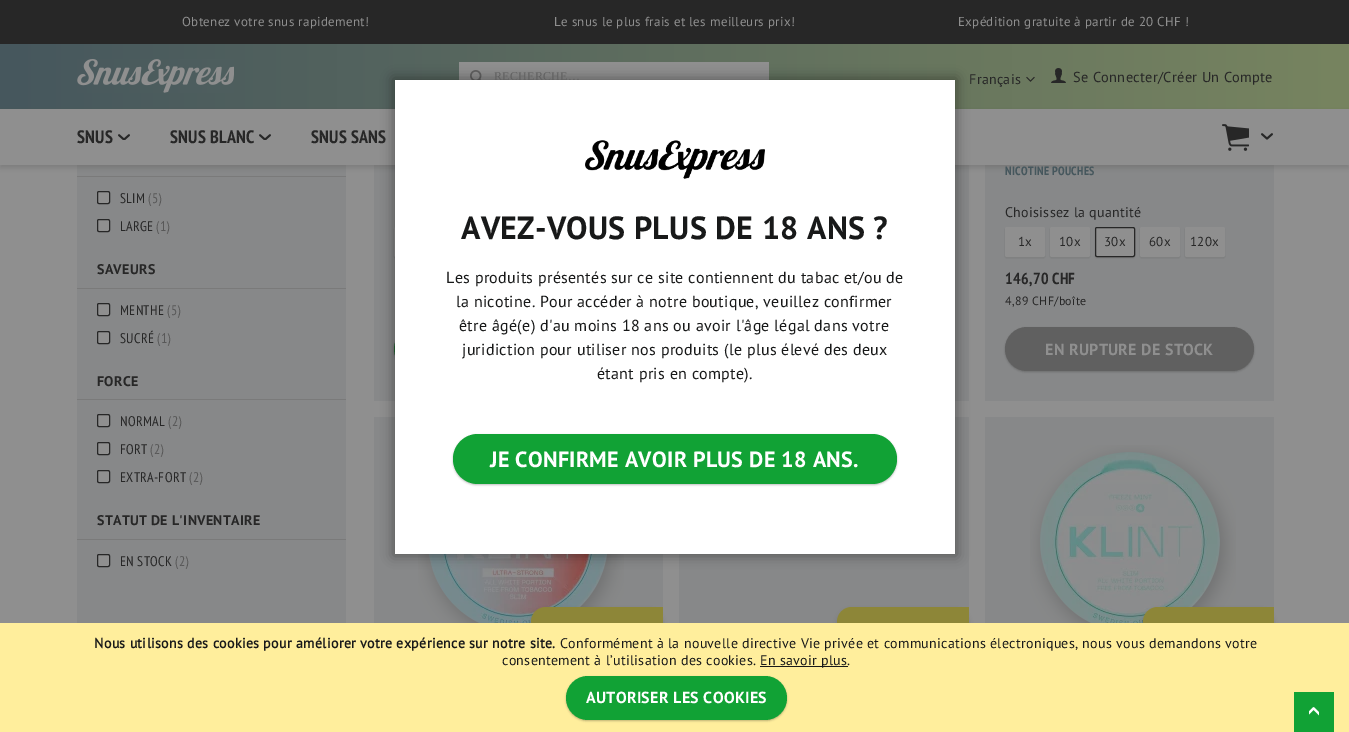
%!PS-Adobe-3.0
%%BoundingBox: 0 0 1349 732
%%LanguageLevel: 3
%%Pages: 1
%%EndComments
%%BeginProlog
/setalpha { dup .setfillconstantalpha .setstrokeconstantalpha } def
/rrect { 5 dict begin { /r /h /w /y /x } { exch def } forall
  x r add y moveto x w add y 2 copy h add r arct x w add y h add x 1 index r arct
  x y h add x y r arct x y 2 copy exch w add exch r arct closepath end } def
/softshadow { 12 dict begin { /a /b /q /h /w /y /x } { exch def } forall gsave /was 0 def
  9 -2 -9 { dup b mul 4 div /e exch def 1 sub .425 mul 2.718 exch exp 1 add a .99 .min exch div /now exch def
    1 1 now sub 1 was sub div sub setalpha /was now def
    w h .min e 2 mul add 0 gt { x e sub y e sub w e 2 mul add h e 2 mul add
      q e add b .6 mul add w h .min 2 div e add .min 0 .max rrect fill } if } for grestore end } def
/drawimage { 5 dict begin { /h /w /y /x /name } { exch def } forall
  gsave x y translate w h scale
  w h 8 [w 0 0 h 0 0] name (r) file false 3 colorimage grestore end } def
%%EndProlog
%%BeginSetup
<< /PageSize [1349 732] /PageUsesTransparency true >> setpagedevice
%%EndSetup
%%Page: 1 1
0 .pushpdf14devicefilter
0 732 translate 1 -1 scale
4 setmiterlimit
0.561 setgray
0 0 1349 732 rectfill
gsave newpath 0 44 moveto 1349 44 lineto 1349 109 lineto 0 109 lineto closepath clip newpath
<< /ShadingType 2 /ColorSpace /DeviceRGB /Coords [0 83 1349 82] /Extend [true true] /Function << /FunctionType 2 /Domain [0 1] /C0 [0.275 0.341 0.365] /C1 [0.467 0.518 0.373] /N 1 >> >> shfill grestore
0.153 setgray
0 0 1349 44 rectfill
(images/1.raw) 77 59 157 34 drawimage
0.561 setgray
459 62 310 18 rectfill
(images/2.raw) 470 70 12 10 drawimage
(images/3.raw) 1026 76 9 6 drawimage
(images/4.raw) 1051 68 15 15 drawimage
0.529 0.533 0.537 setrgbcolor
77 165 269 458 rectfill
0.478 setgray
77 176 269 1 rectfill
0.529 0.533 0.537 setrgbcolor
374 165 21 236 rectfill
955 165 14 236 rectfill
985 165 289 236 rectfill
0.11 setgray
0 112 1349 56 0 3 0.16 softshadow
0.561 setgray
0 109 1349 56 rectfill
(images/5.raw) 118 134 12 6 drawimage
(images/5.raw) 259 134 12 6 drawimage
(images/6.raw) 1222 124 27 27 drawimage
(images/7.raw) 1261 133 12 7 drawimage
97.5 191.5 12 12 1.5 rrect gsave fill grestore
0.153 setgray
stroke
0.561 setgray
97.5 219.5 12 12 1.5 rrect gsave fill grestore
0.153 setgray
stroke
0.478 setgray
77 288 269 1 rectfill
0.561 setgray
97.5 303.5 12 12 1.5 rrect gsave fill grestore
0.153 setgray
stroke
0.561 setgray
97.5 331.5 12 12 1.5 rrect gsave fill grestore
0.153 setgray
stroke
0.478 setgray
77 399 269 1 rectfill
0.561 setgray
97.5 414.5 12 12 1.5 rrect gsave fill grestore
0.153 setgray
stroke
0.561 setgray
97.5 442.5 12 12 1.5 rrect gsave fill grestore
0.153 setgray
stroke
0.561 setgray
97.5 470.5 12 12 1.5 rrect gsave fill grestore
0.153 setgray
stroke
0.478 setgray
77 539 269 1 rectfill
0.561 setgray
97.5 554.5 12 12 1.5 rrect gsave fill grestore
0.153 setgray
stroke
0.11 setgray
394 228 40 30 2 1 0.16 softshadow
0.561 setgray
394.5 227.5 39 29 1.5 rrect stroke
0.11 setgray
394 328 249 44 22 1 0.25 softshadow
0.141 0.396 0.204 setrgbcolor
394 327 249 44 22 rrect fill
0.11 setgray
1005 228 40 30 2 1 0.16 softshadow
0.561 setgray
1005.5 227.5 39 29 1.5 rrect gsave fill grestore
stroke
0.11 setgray
1050 228 40 30 2 1 0.16 softshadow
0.561 setgray
1050.5 227.5 39 29 1.5 rrect gsave fill grestore
stroke
0.11 setgray
1095 228 40 30 2 1 0.16 softshadow
0.561 setgray
1095.5 227.5 39 29 1.5 rrect gsave fill grestore
0.153 setgray
stroke
0.11 setgray
1140 228 40 30 2 1 0.16 softshadow
0.561 setgray
1140.5 227.5 39 29 1.5 rrect gsave fill grestore
stroke
0.11 setgray
1185 228 40 30 2 1 0.16 softshadow
0.561 setgray
1185.5 227.5 39 29 1.5 rrect gsave fill grestore
stroke
0.11 setgray
1005 328 249 44 22 1 0.25 softshadow
0.376 setgray
1005 327 249 44 22 rrect fill
0.529 0.533 0.537 setrgbcolor
374 417 289 206 rectfill
(images/8.raw) 418 554 206 69 drawimage
0.11 setgray
531 610 132 30 15 3 0.16 softshadow
0.553 0.525 0.22 setrgbcolor
newpath 546 607 moveto 663 607 lineto 663 637 lineto 546 637 lineto 537.5 637 531 630.5 531 622 curveto 531 613.5 537.5 607 546 607 curveto closepath fill
0.529 0.533 0.537 setrgbcolor
679 417 290 206 rectfill
0.11 setgray
837 610 132 30 15 3 0.16 softshadow
0.553 0.525 0.22 setrgbcolor
newpath 852 607 moveto 969 607 lineto 969 637 lineto 852 637 lineto 843.5 637 837 630.5 837 622 curveto 837 613.5 843.5 607 852 607 curveto closepath fill
0.529 0.533 0.537 setrgbcolor
985 417 289 206 rectfill
(images/9.raw) 1030 445 206 178 drawimage
0.11 setgray
1143 610 131 30 15 3 0.16 softshadow
0.553 0.525 0.22 setrgbcolor
newpath 1158 607 moveto 1274 607 lineto 1274 637 lineto 1158 637 lineto 1149.5 637 1143 630.5 1143 622 curveto 1143 613.5 1149.5 607 1158 607 curveto closepath fill
1 0.933 0.612 setrgbcolor
0 623 1349 109 rectfill
0.067 0.635 0.208 setrgbcolor
1294 692 40 40 rectfill
(images/10.raw) 1309 707 10 9 drawimage
0 setgray
393 78 564 478 0 6 0.35 softshadow
0.094 0.098 0.098 setrgbcolor
760 666 88 1 rectfill
0 setgray
566 677 221 44 22 1 0.25 softshadow
0.067 0.635 0.208 setrgbcolor
566 676 221 44 22 rrect fill
/PTSans-Regular [13 0 0 -13 0 0] selectfont
0.561 setgray
182 26 moveto 0.3 0 (Obtenez votre snus rapidement!) ashow
554 26 moveto 0.3 0 (Le snus le plus frais et les meilleurs prix!) ashow
958 26 moveto 0.3 0 (Expédition gratuite à partir de 20 CHF !) ashow
/LiberationSerif-Regular [12 0 0 -12 0 0] selectfont
0.376 setgray
494 80 moveto 0.3 0 (RECHERCHE…) ashow
/PTSans-Regular [14 0 0 -14 0 0] selectfont
0.153 setgray
969 84 moveto 0.3 0 (Français) ashow
/PTSans-Regular [14.4 0 0 -14.4 0 0] selectfont
1073 82 moveto 0.3 0 (Se Connecter/Créer Un Compte) ashow
/PTSansNarrow-Bold [18 0 0 -18 0 0] selectfont
77 143 moveto 0.3 0 (SNUS) ashow
170 143 moveto 0.3 0 (SNUS BLANC) ashow
311 143 moveto 0.3 0 (SNUS SANS) ashow
/PTSansNarrow-Regular [14 0 0 -14 0 0] selectfont
120 203 moveto 0.3 0 (SLIM) ashow
0.345 setgray
148 203 moveto 0.3 0 (\(5\)) ashow
0.153 setgray
120 231 moveto 0.3 0 (LARGE) ashow
0.345 setgray
156 231 moveto 0.3 0 (\(1\)) ashow
/PTSans-Bold [14 0 0 -14 0 0] selectfont
0.153 setgray
97 274 moveto 0.3 0 (SAVEURS) ashow
/PTSansNarrow-Regular [14 0 0 -14 0 0] selectfont
120 315 moveto 0.3 0 (MENTHE) ashow
0.345 setgray
167 315 moveto 0.3 0 (\(5\)) ashow
0.153 setgray
120 343 moveto 0.3 0 (SUCRÉ) ashow
0.345 setgray
157 343 moveto 0.3 0 (\(1\)) ashow
/PTSans-Bold [14 0 0 -14 0 0] selectfont
0.153 setgray
97 386 moveto 0.3 0 (FORCE) ashow
/PTSansNarrow-Regular [14 0 0 -14 0 0] selectfont
120 426 moveto 0.3 0 (NORMAL) ashow
0.345 setgray
168 426 moveto 0.3 0 (\(2\)) ashow
0.153 setgray
120 454 moveto 0.3 0 (FORT) ashow
0.345 setgray
150 454 moveto 0.3 0 (\(2\)) ashow
0.153 setgray
120 482 moveto 0.3 0 (EXTRA-FORT) ashow
0.345 setgray
189 482 moveto 0.3 0 (\(2\)) ashow
/PTSans-Bold [14 0 0 -14 0 0] selectfont
0.153 setgray
97 525 moveto 0.3 0 (STATUT DE L'INVENTAIRE) ashow
/PTSansNarrow-Regular [14 0 0 -14 0 0] selectfont
120 566 moveto 0.3 0 (EN STOCK) ashow
0.345 setgray
175 566 moveto 0.3 0 (\(2\)) ashow
/PTSansNarrow-Bold [12 0 0 -12 0 0] selectfont
0.275 0.341 0.365 setrgbcolor
1005 175 moveto 0.3 0 (NICOTINE POUCHES) ashow
/PTSans-Regular [14 0 0 -14 0 0] selectfont
0.153 setgray
1005 217 moveto 0.3 0 (Choisissez la quantité) ashow
/PTSans-Regular [13 0 0 -13 0 0] selectfont
1018 246 moveto 0.3 0 (1x) ashow
1059 246 moveto 0.3 0 (10x) ashow
1104 246 moveto 0.3 0 (30x) ashow
1149 246 moveto 0.3 0 (60x) ashow
1190 246 moveto 0.3 0 (120x) ashow
/PTSansNarrow-Bold [16 0 0 -16 0 0] selectfont
1005 284 moveto 0.3 0 (146,70 CHF) ashow
/PTSans-Regular [12 0 0 -12 0 0] selectfont
1005 305 moveto 0.3 0 (4,89 CHF/boîte) ashow
/PTSans-Bold [16 0 0 -16 0 0] selectfont
0.561 setgray
1045 355 moveto 0.3 0 (EN RUPTURE DE STOCK) ashow
1 setgray
395 80 560 474 rectfill
(images/11.raw) 585 140 180 39 drawimage
/PTSans-Bold [32 0 0 -32 0 0] selectfont
0.094 0.098 0.098 setrgbcolor
461 239 moveto 0.3 0 (AVEZ-VOUS PLUS DE 18 ANS ?) ashow
/PTSans-Regular [16 0 0 -16 0 0] selectfont
446 283 moveto 0.3 0 (Les produits présentés sur ce site contiennent du tabac et/ou de) ashow
456 307 moveto 0.3 0 (la nicotine. Pour accéder à notre boutique, veuillez confirmer) ashow
459 331 moveto 0.3 0 (être âgé\(e\) d'au moins 18 ans ou avoir l'âge légal dans votre) ashow
462 355 moveto 0.3 0 (juridiction pour utiliser nos produits \(le plus élevé des deux) ashow
597 379 moveto 0.3 0 (étant pris en compte\).) ashow
0 setgray
453 435 444 50 25 1 0.25 softshadow
0.067 0.635 0.208 setrgbcolor
453 434 444 50 25 rrect fill
/PTSans-Bold [22 0 0 -22 0 0] selectfont
1 setgray
490 467 moveto 0.3 0 (JE CONFIRME AVOIR PLUS DE 18 ANS.) ashow
/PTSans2-Bold [14 0 0 -14 0 0] selectfont
0.094 0.098 0.098 setrgbcolor
94 648 moveto 0.3 0 (Nous utilisons des cookies pour améliorer votre expérience sur notre site.) ashow
/PTSans-Regular [14 0 0 -14 0 0] selectfont
560 648 moveto 0.3 0 (Conformément à la nouvelle directive Vie privée et communications électroniques, nous vous demandons votre) ashow
502 665 moveto 0.3 0 (consentement à l’utilisation des cookies.) ashow
760 665 moveto 0.3 0 (En savoir plus.) ashow
/PTSans-Bold [16 0 0 -16 0 0] selectfont
1 setgray
586 703 moveto 0.3 0 (AUTORISER LES COOKIES) ashow
.poppdf14devicefilter showpage
%%EOF
